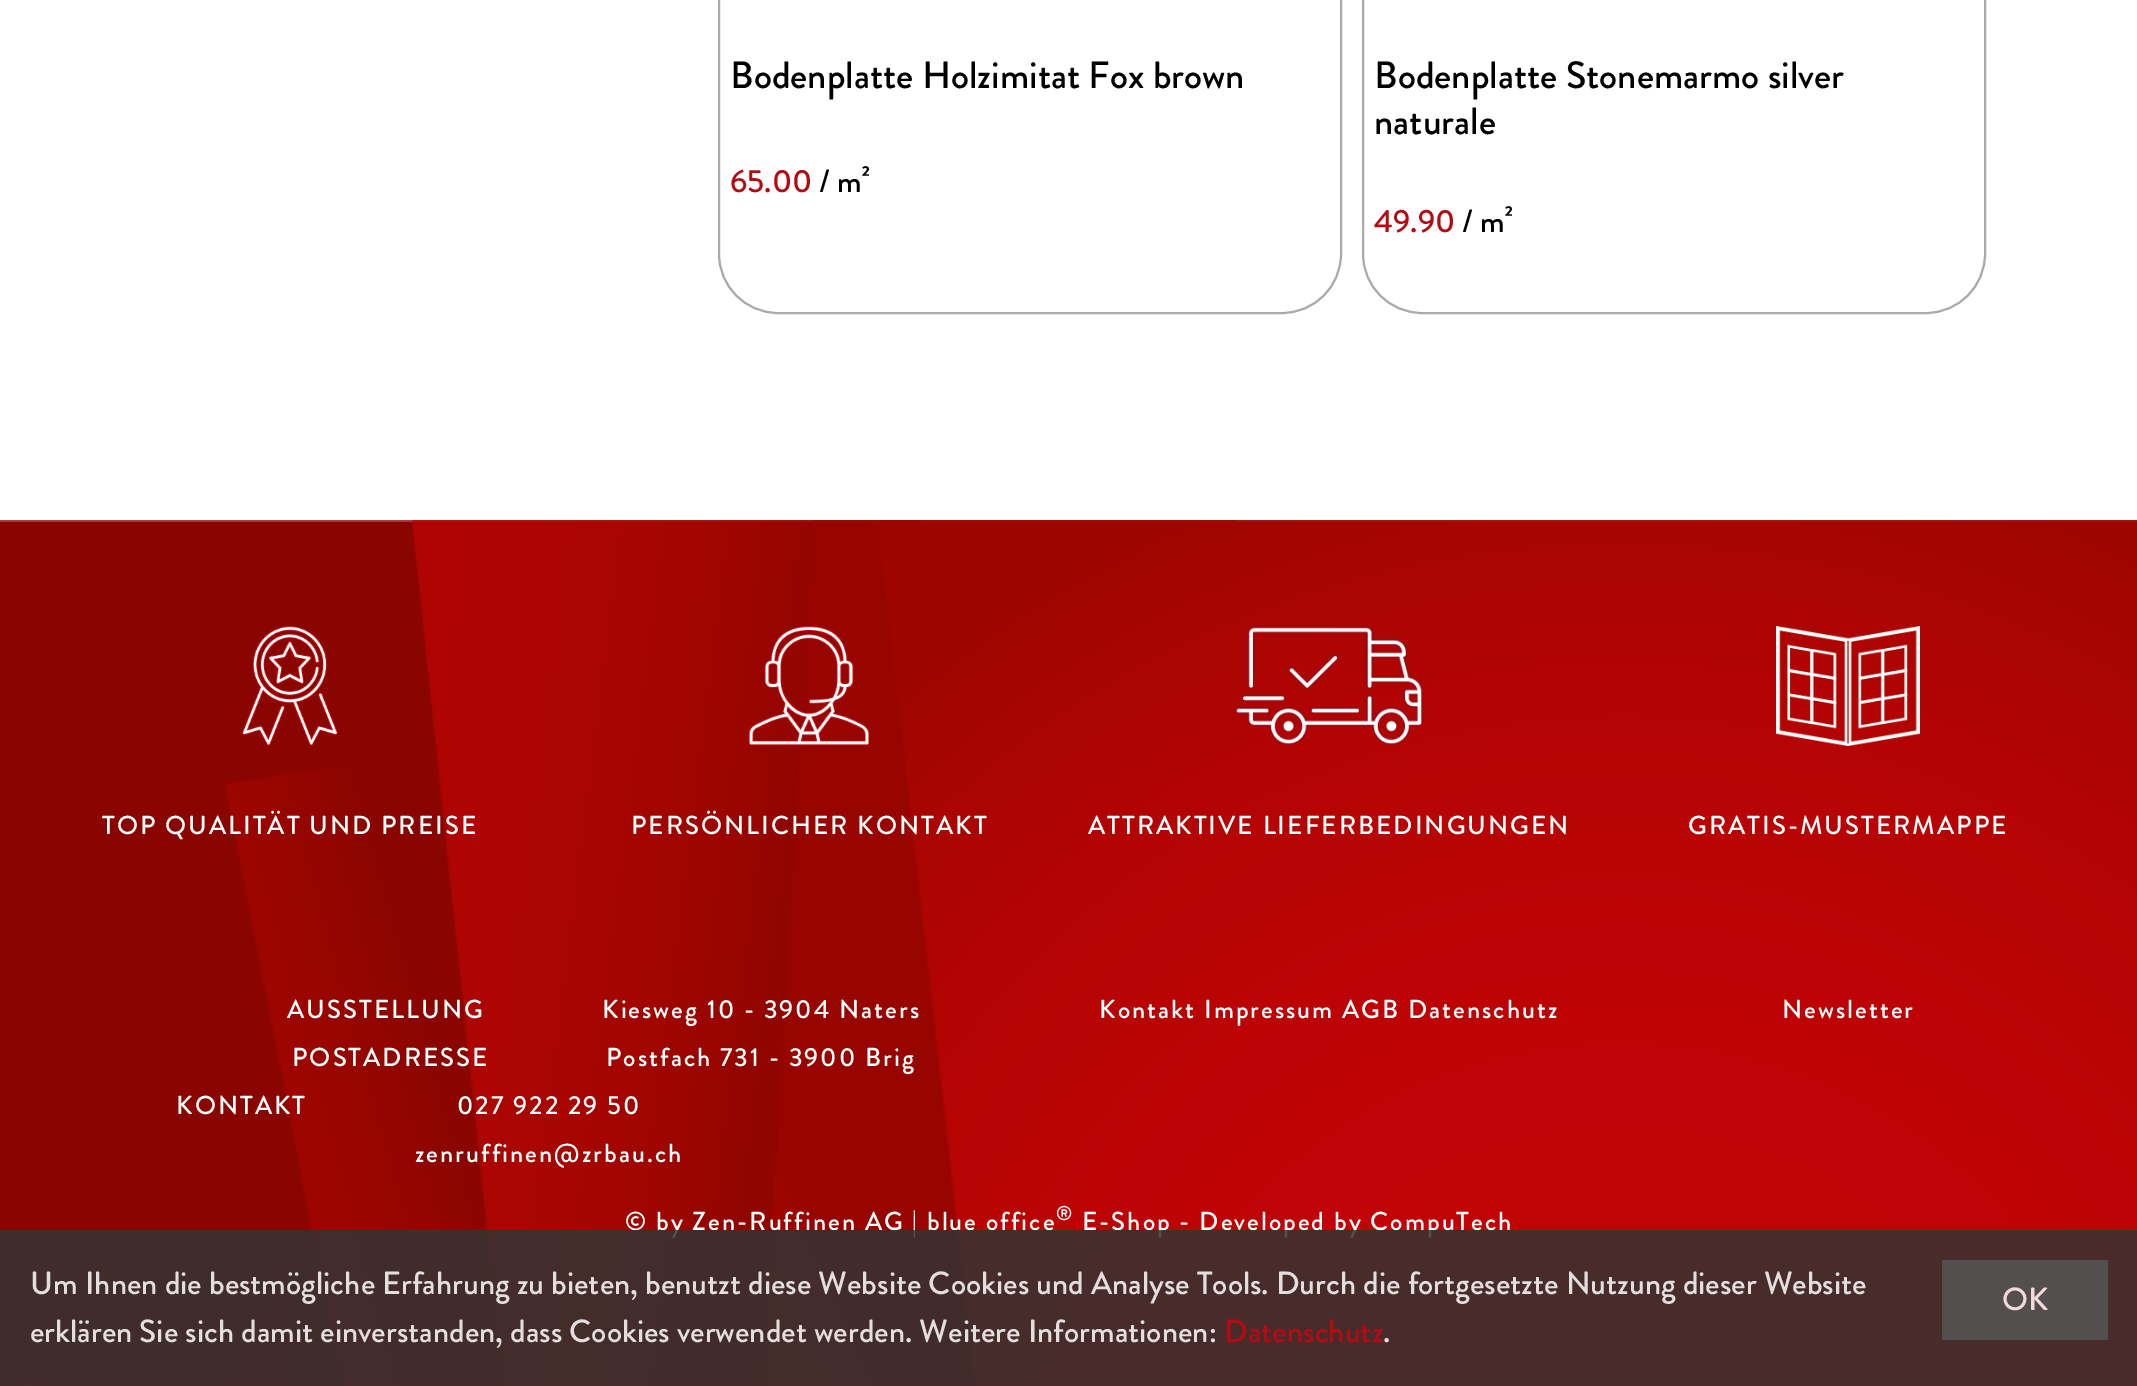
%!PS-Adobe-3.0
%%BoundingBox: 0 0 2137 1386
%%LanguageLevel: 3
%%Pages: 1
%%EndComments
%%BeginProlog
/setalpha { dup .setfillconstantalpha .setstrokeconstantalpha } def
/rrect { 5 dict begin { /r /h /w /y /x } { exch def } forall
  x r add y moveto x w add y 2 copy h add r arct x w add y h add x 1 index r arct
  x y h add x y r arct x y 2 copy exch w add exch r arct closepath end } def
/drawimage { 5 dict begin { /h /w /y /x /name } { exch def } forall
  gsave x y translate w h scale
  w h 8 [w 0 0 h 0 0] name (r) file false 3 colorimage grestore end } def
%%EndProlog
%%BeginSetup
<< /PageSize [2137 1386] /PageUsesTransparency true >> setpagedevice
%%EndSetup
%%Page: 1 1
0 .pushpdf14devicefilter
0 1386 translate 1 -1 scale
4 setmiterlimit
1 setgray
0 0 2137 1386 rectfill
0.667 setgray
2 setlinewidth
719 -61 622 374 59 rrect stroke
1363 -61 622 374 59 rrect stroke
(images/1.raw) 0 520 2137 866 drawimage
(images/2.raw) 242 626 96 120 drawimage
(images/3.raw) 748 626 122 120 drawimage
(images/4.raw) 1234 626 190 120 drawimage
(images/5.raw) 1776 626 144 120 drawimage
/BrandonGrotesque-Medium [38 0 0 -38 0 0] selectfont
0 setgray
730 88 moveto (Bodenplatte Holzimitat Fox brown) show
/BrandonGrotesque-Medium [32 0 0 -32 0 0] selectfont
0.71 0.039 0.067 setrgbcolor
730 192 moveto (65.00) show
0 setgray
819 192 moveto (/ m²) show
/BrandonGrotesque-Medium [38 0 0 -38 0 0] selectfont
1374 88 moveto (Bodenplatte Stonemarmo silver) show
1374 134 moveto (naturale) show
/BrandonGrotesque-Medium [32 0 0 -32 0 0] selectfont
0.71 0.039 0.067 setrgbcolor
1374 232 moveto (49.90) show
0 setgray
1462 232 moveto (/ m²) show
/BrandonGrotesque-Medium [26 0 0 -26 0 0] selectfont
1 setgray
102 834 moveto 2 0 (TOP QUALITÄT UND PREISE) ashow
631 834 moveto 2 0 (PERSÖNLICHER KONTAKT) ashow
1088 834 moveto 2 0 (ATTRAKTIVE LIEFERBEDINGUNGEN) ashow
1688 834 moveto 2 0 (GRATIS-MUSTERMAPPE) ashow
287 1018 moveto 2 0 (AUSSTELLUNG) ashow
602 1018 moveto 2 0 (Kiesweg 10 - 3904 Naters) ashow
292 1066 moveto 2 0 (POSTADRESSE) ashow
606 1066 moveto 2 0 (Postfach 731 - 3900 Brig) ashow
176 1114 moveto 2 0 (KONTAKT) ashow
457 1114 moveto 2 0 (027 922 29 50) ashow
415 1162 moveto 2 0 (zenruffinen@zrbau.ch) ashow
1099 1018 moveto 2 0 (Kontakt Impressum AGB Datenschutz) ashow
1782 1018 moveto 2 0 (Newsletter) ashow
625 1230 moveto 2 0 (© by Zen-Ruffinen AG | blue office) ashow
/BrandonGrotesque-Medium [20 0 0 -20 0 0] selectfont
1056 1220 moveto 2 0 (®) ashow
/BrandonGrotesque-Medium [26 0 0 -26 0 0] selectfont
1082 1230 moveto 2 0 (E-Shop - Developed by CompuTech) ashow
0.85 setalpha
0.2 setgray
0 1230 2137 156 rectfill
/BrandonGrotesque-Medium [32 0 0 -32 0 0] selectfont
1 setalpha
0.89 0.875 0.875 setrgbcolor
30 1294 moveto (Um Ihnen die bestmögliche Erfahrung zu bieten, benutzt diese Website Cookies und Analyse Tools. Durch die fortgesetzte Nutzung dieser Website) show
0.325 0.31 0.31 setrgbcolor
1942 1260 166 80 rectfill
0.961 0.851 0.855 setrgbcolor
2002 1310 moveto (OK) show
0.89 0.875 0.875 setrgbcolor
30 1342 moveto (erklären Sie sich damit einverstanden, dass Cookies verwendet werden. Weitere Informationen:) show
0.71 0.039 0.067 setrgbcolor
1224 1342 moveto (Datenschutz) show
0.961 0.851 0.855 setrgbcolor
1383 1342 moveto (.) show
.poppdf14devicefilter showpage
%%EOF
